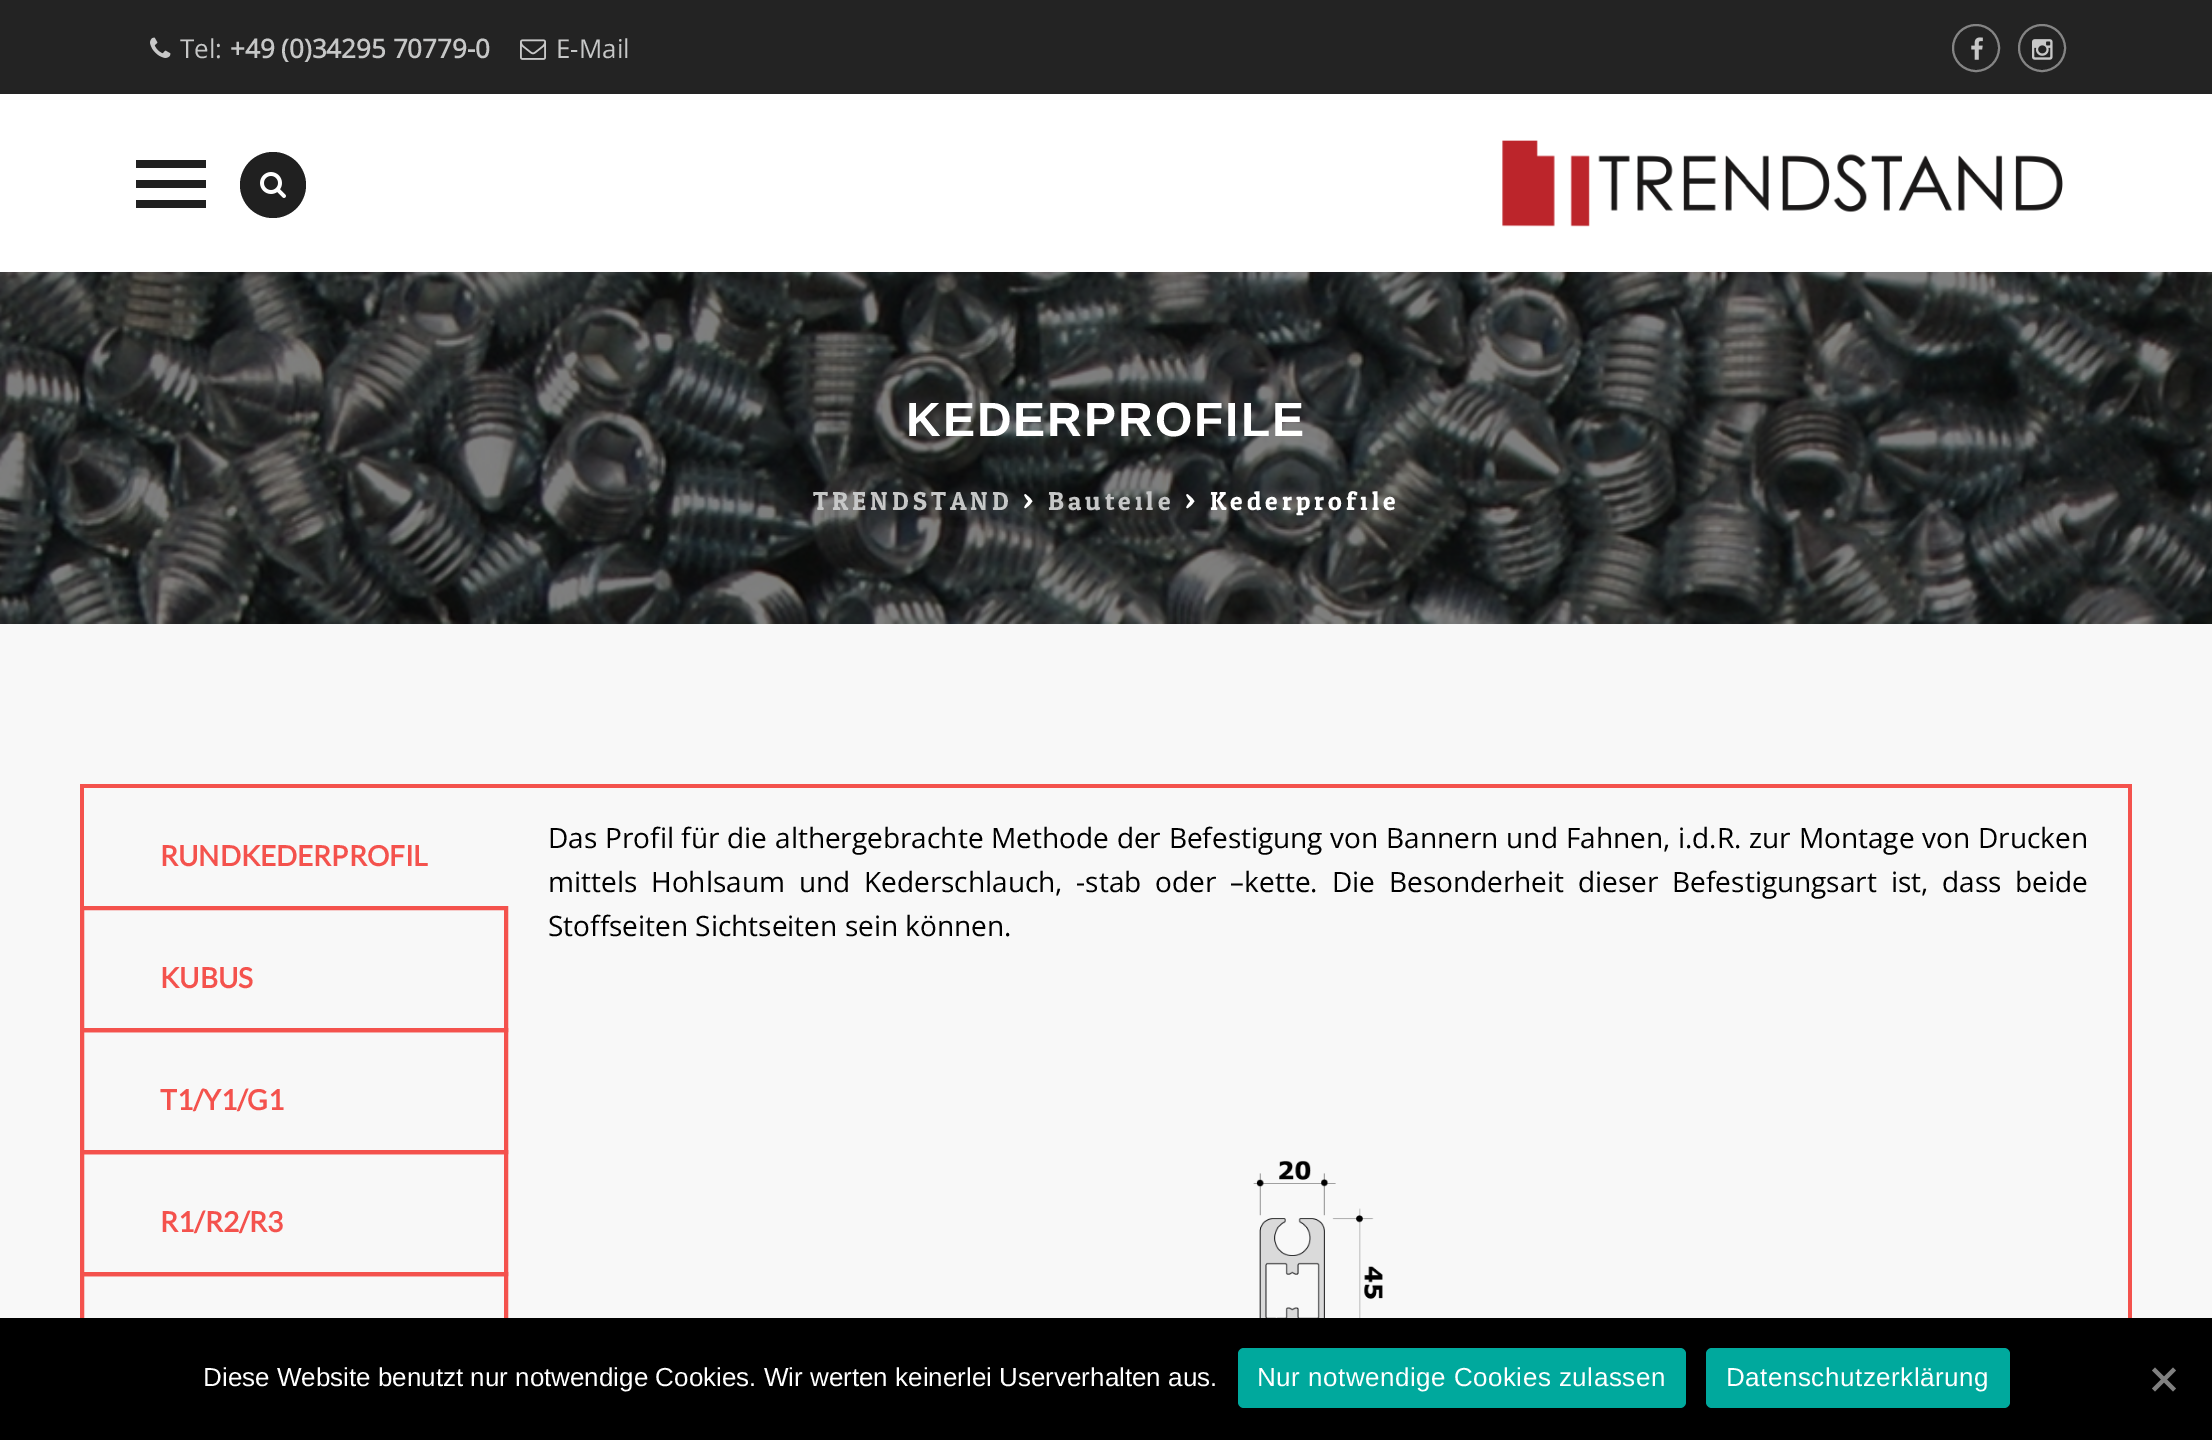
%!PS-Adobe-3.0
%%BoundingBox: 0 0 2212 1440
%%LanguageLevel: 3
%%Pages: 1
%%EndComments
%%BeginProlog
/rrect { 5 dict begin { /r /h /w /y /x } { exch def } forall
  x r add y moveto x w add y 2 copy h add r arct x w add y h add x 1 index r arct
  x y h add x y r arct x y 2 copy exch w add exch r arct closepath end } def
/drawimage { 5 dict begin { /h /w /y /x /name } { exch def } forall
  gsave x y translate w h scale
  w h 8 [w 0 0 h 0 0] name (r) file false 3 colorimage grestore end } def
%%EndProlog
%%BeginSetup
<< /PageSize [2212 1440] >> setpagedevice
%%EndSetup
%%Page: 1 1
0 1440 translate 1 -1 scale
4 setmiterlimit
1 setgray
0 0 2212 1440 rectfill
0.137 setgray
0 0 2212 94 rectfill
(images/1.raw) 150 37 21 21 drawimage
(images/2.raw) 520 39 26 21 drawimage
0.518 setgray
2 setlinewidth
newpath 1976 48 23 0 360 arc closepath stroke
(images/3.raw) 1971 37 12 23 drawimage
newpath 2042 48 23 0 360 arc closepath stroke
(images/4.raw) 2032 39 21 21 drawimage
0.125 setgray
136 180 70 8 rectfill
136 160 70 8 rectfill
136 200 70 8 rectfill
newpath 273 185 33 0 360 arc closepath fill
(images/5.raw) 260 172 26 26 drawimage
(images/6.raw) 1502 140 561 87 drawimage
(images/7.raw) 0 272 2212 352 drawimage
0.973 setgray
0 624 2212 694 rectfill
0.957 0.322 0.302 setrgbcolor
newpath 504 784 moveto 2132 784 lineto 2128 788 lineto 508 788 lineto closepath fill
newpath 80 784 moveto 508 784 lineto 504 788 lineto 84 788 lineto closepath fill
80 784 4 126 rectfill
504 786 4 2 rectfill
4 setlinewidth
82 908 424 122 rectstroke
82 1030 424 122 rectstroke
82 1152 424 122 rectstroke
82 1274 424 122 rectstroke
2128 784 4 534 rectfill
(images/8.raw) 1253 1160 130 158 drawimage
0 setgray
0 1318 2212 122 rectfill
0 0.663 0.616 setrgbcolor
1238 1348 448 60 6 rrect fill
1706 1348 304 60 6 rrect fill
0.502 setgray
newpath 2173 1367.5 moveto 2176 1370.5 lineto 2155 1391.5 lineto 2152 1388.5 lineto closepath fill
newpath 2152 1370.5 moveto 2155 1367.5 lineto 2176 1388.5 lineto 2173 1391.5 lineto closepath fill
/OpenSans-Regular [26 0 0 -26 0 0] selectfont
0.776 0.78 0.78 setrgbcolor
180 58 moveto (Tel:) show
/OpenSans-Bold [26 0 0 -26 0 0] selectfont
230 58 moveto (+49 \(0\)34295 70779-0) show
/OpenSans-Regular [26 0 0 -26 0 0] selectfont
556 58 moveto (E-Mail) show
/Arimo-Bold [48 0 0 -48 0 0] selectfont
1 setgray
906 436 moveto 2 0 (KEDERPROFILE) ashow
/OdorMeanChey-Regular [26 0 0 -26 0 0] selectfont
0.776 0.78 0.78 setrgbcolor
813 510 moveto 4 0 (TRENDSTAND) ashow
1 setgray
1023 510 moveto 4 0 (>) ashow
0.776 0.78 0.78 setrgbcolor
1048 510 moveto 4 0 (Bauteile) ashow
1 setgray
1185 510 moveto 4 0 (> Kederprofile) ashow
/Lato-Bold [28 0 0 -28 0 0] selectfont
0.957 0.322 0.302 setrgbcolor
160 866 moveto (RUNDKEDERPROFIL) show
160 988 moveto (KUBUS) show
160 1110 moveto (T1/Y1/G1) show
160 1232 moveto (R1/R2/R3) show
/OpenSans-Regular [28 0 0 -28 0 0] selectfont
0 setgray
548 848 moveto 0.5 0 32 (Das Profil für die althergebrachte Methode der Befestigung von Bannern und Fahnen, i.d.R. zur Montage von Drucken) widthshow
548 892 moveto 6.6 0 32 (mittels Hohlsaum und Kederschlauch, -stab oder –kette. Die Besonderheit dieser Befestigungsart ist, dass beide) widthshow
548 936 moveto (Stoffseiten Sichtseiten sein können.) show
/LiberationSans-Regular [26 0 0 -26 0 0] selectfont
1 setgray
203 1386 moveto (Diese Website benutzt nur notwendige Cookies. Wir werten keinerlei Userverhalten aus.) show
1257 1386 moveto 0.5 0 (Nur notwendige Cookies zulassen) ashow
1726 1386 moveto 0.5 0 (Datenschutzerklärung) ashow
showpage
%%EOF
